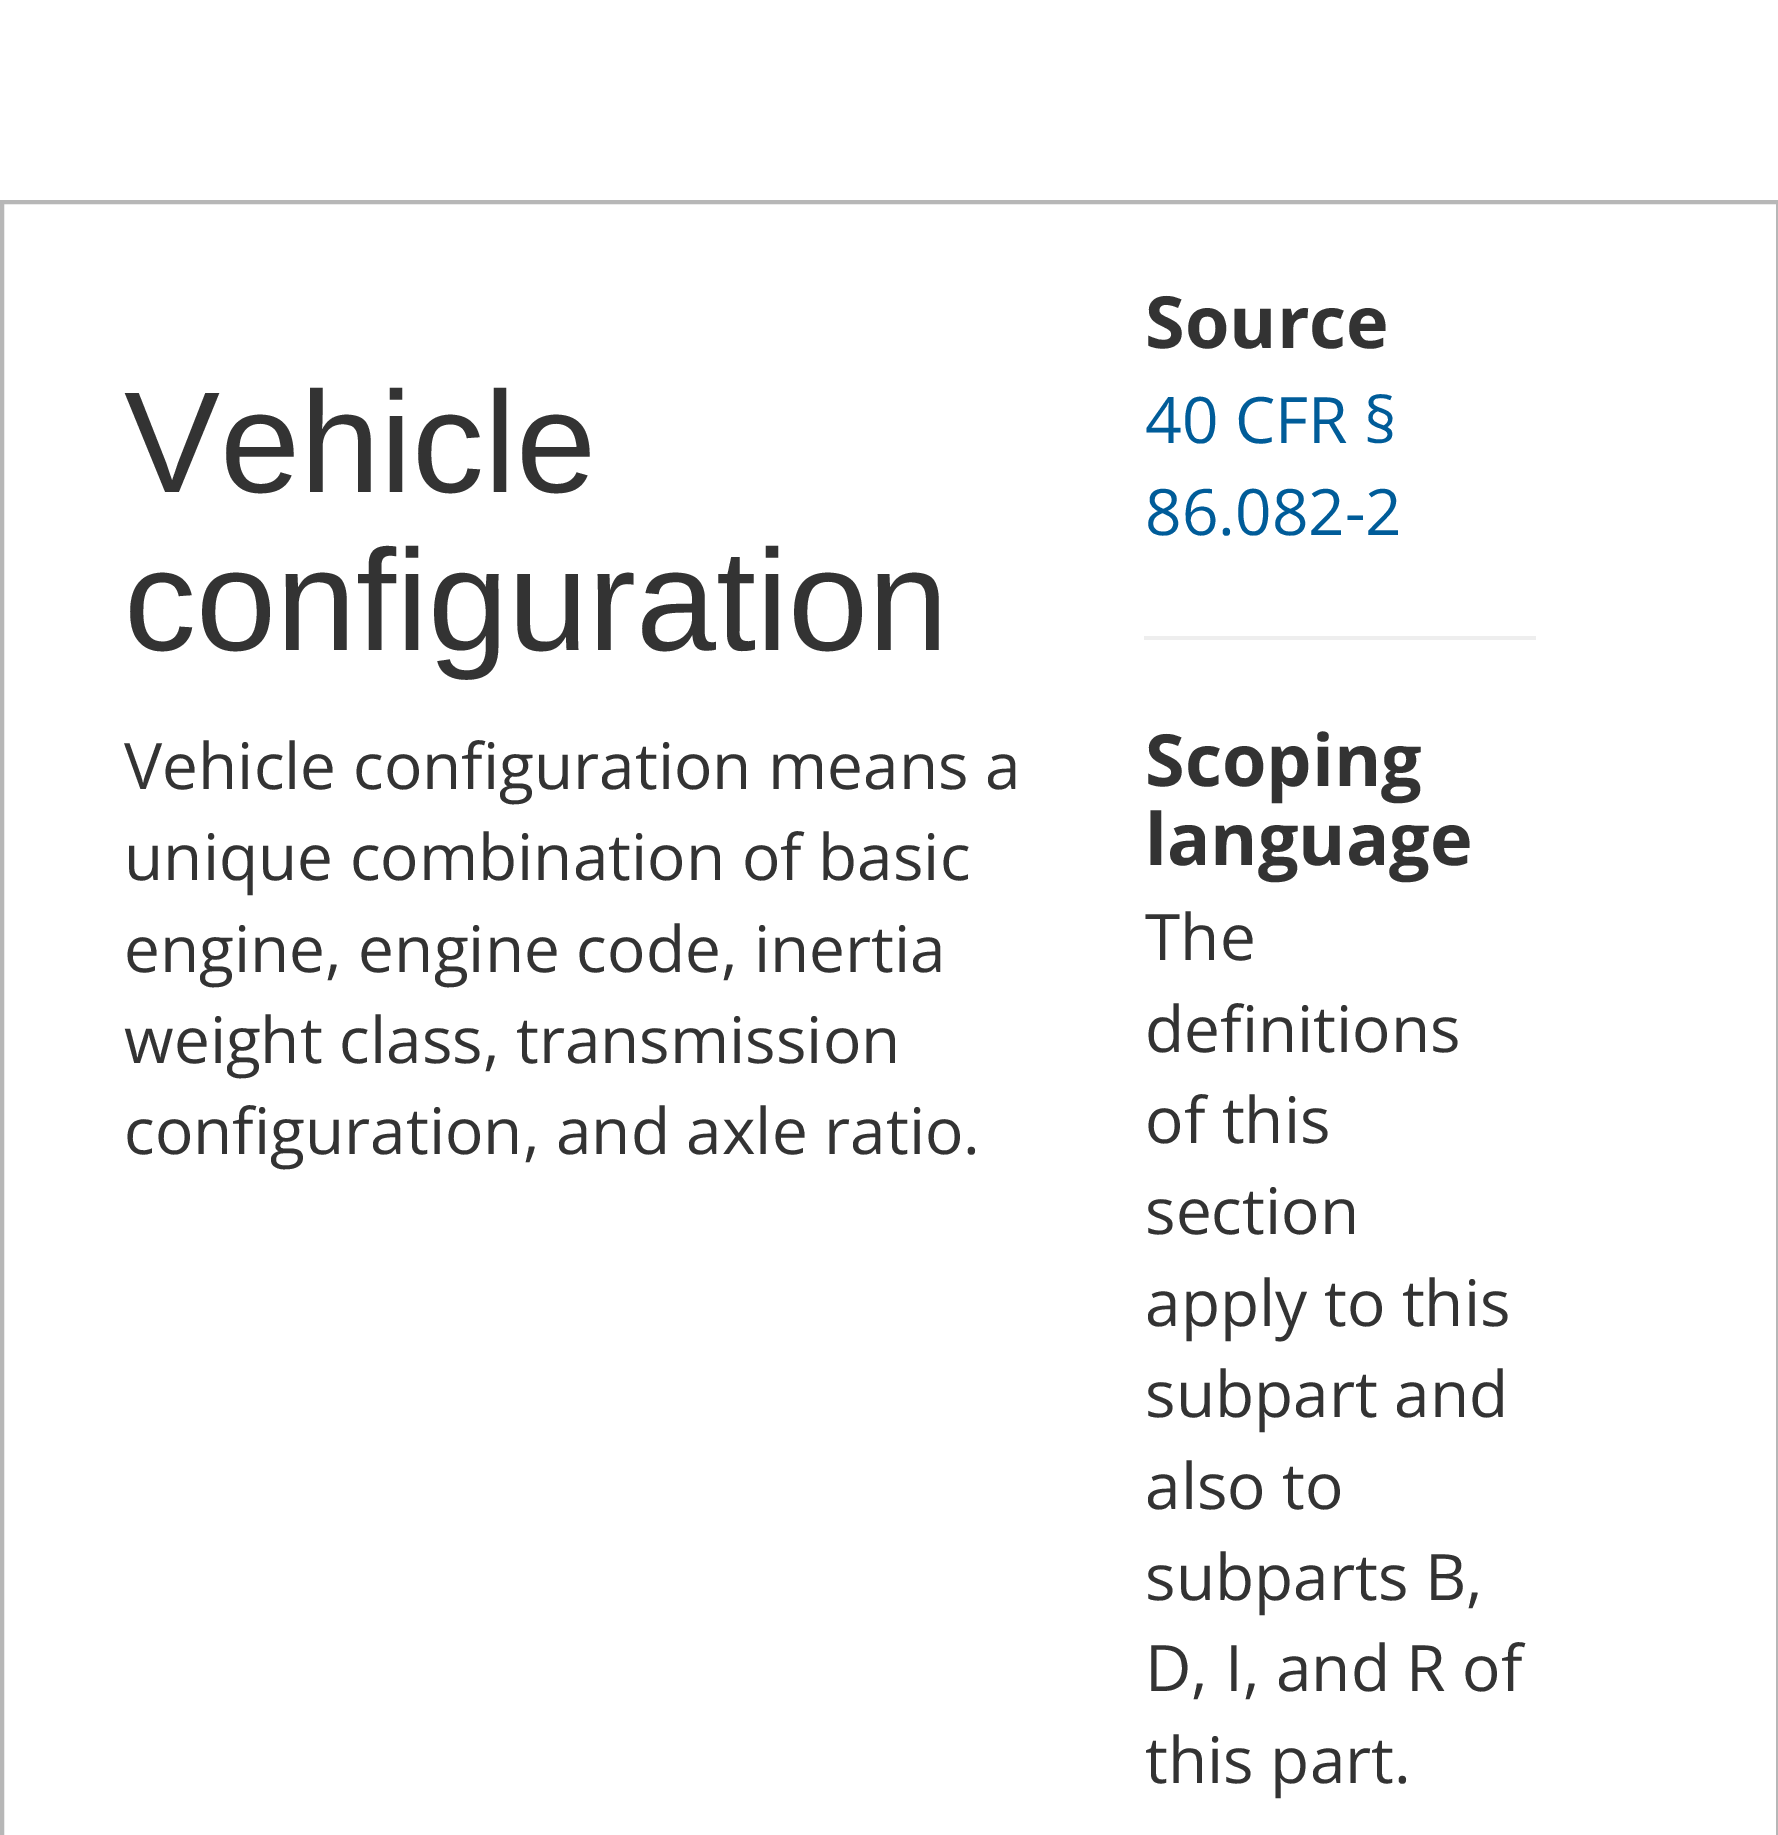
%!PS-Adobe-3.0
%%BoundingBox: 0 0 1778 1835
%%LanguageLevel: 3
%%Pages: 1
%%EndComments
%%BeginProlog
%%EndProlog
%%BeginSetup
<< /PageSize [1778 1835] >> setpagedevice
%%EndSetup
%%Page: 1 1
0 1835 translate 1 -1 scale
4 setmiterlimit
1 setgray
0 0 1778 1835 rectfill
0.718 setgray
4 setlinewidth
2 202 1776 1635 rectstroke
0.933 setgray
1144 636 392 4 rectfill
/LiberationSans-Regular [144 0 0 -144 0 0] selectfont
0.2 setgray
124 492 moveto (Vehicle) show
124 650 moveto (configuration) show
/OpenSans-Regular [64 0 0 -64 0 0] selectfont
124 789 moveto (Vehicle configuration means a) show
124 880 moveto (unique combination of basic) show
124 972 moveto (engine, engine code, inertia) show
124 1063 moveto (weight class, transmission) show
124 1154 moveto (configuration, and axle ratio.) show
/OpenSans-Bold [72 0 0 -72 0 0] selectfont
1145 348 moveto (Source) show
/OpenSans-Regular [64 0 0 -64 0 0] selectfont
0 0.361 0.6 setrgbcolor
1145 443 moveto (40 CFR §) show
1145 535 moveto (86.082-2) show
/OpenSans-Bold [72 0 0 -72 0 0] selectfont
0.2 setgray
1145 786 moveto (Scoping) show
1145 865 moveto (language) show
/OpenSans-Regular [64 0 0 -64 0 0] selectfont
1145 960 moveto (The) show
1145 1052 moveto (definitions) show
1145 1143 moveto (of this) show
1145 1234 moveto (section) show
1145 1326 moveto (apply to this) show
1145 1417 moveto (subpart and) show
1145 1509 moveto (also to) show
1145 1600 moveto (subparts B,) show
1145 1691 moveto (D, I, and R of) show
1145 1783 moveto (this part.) show
showpage
%%EOF
